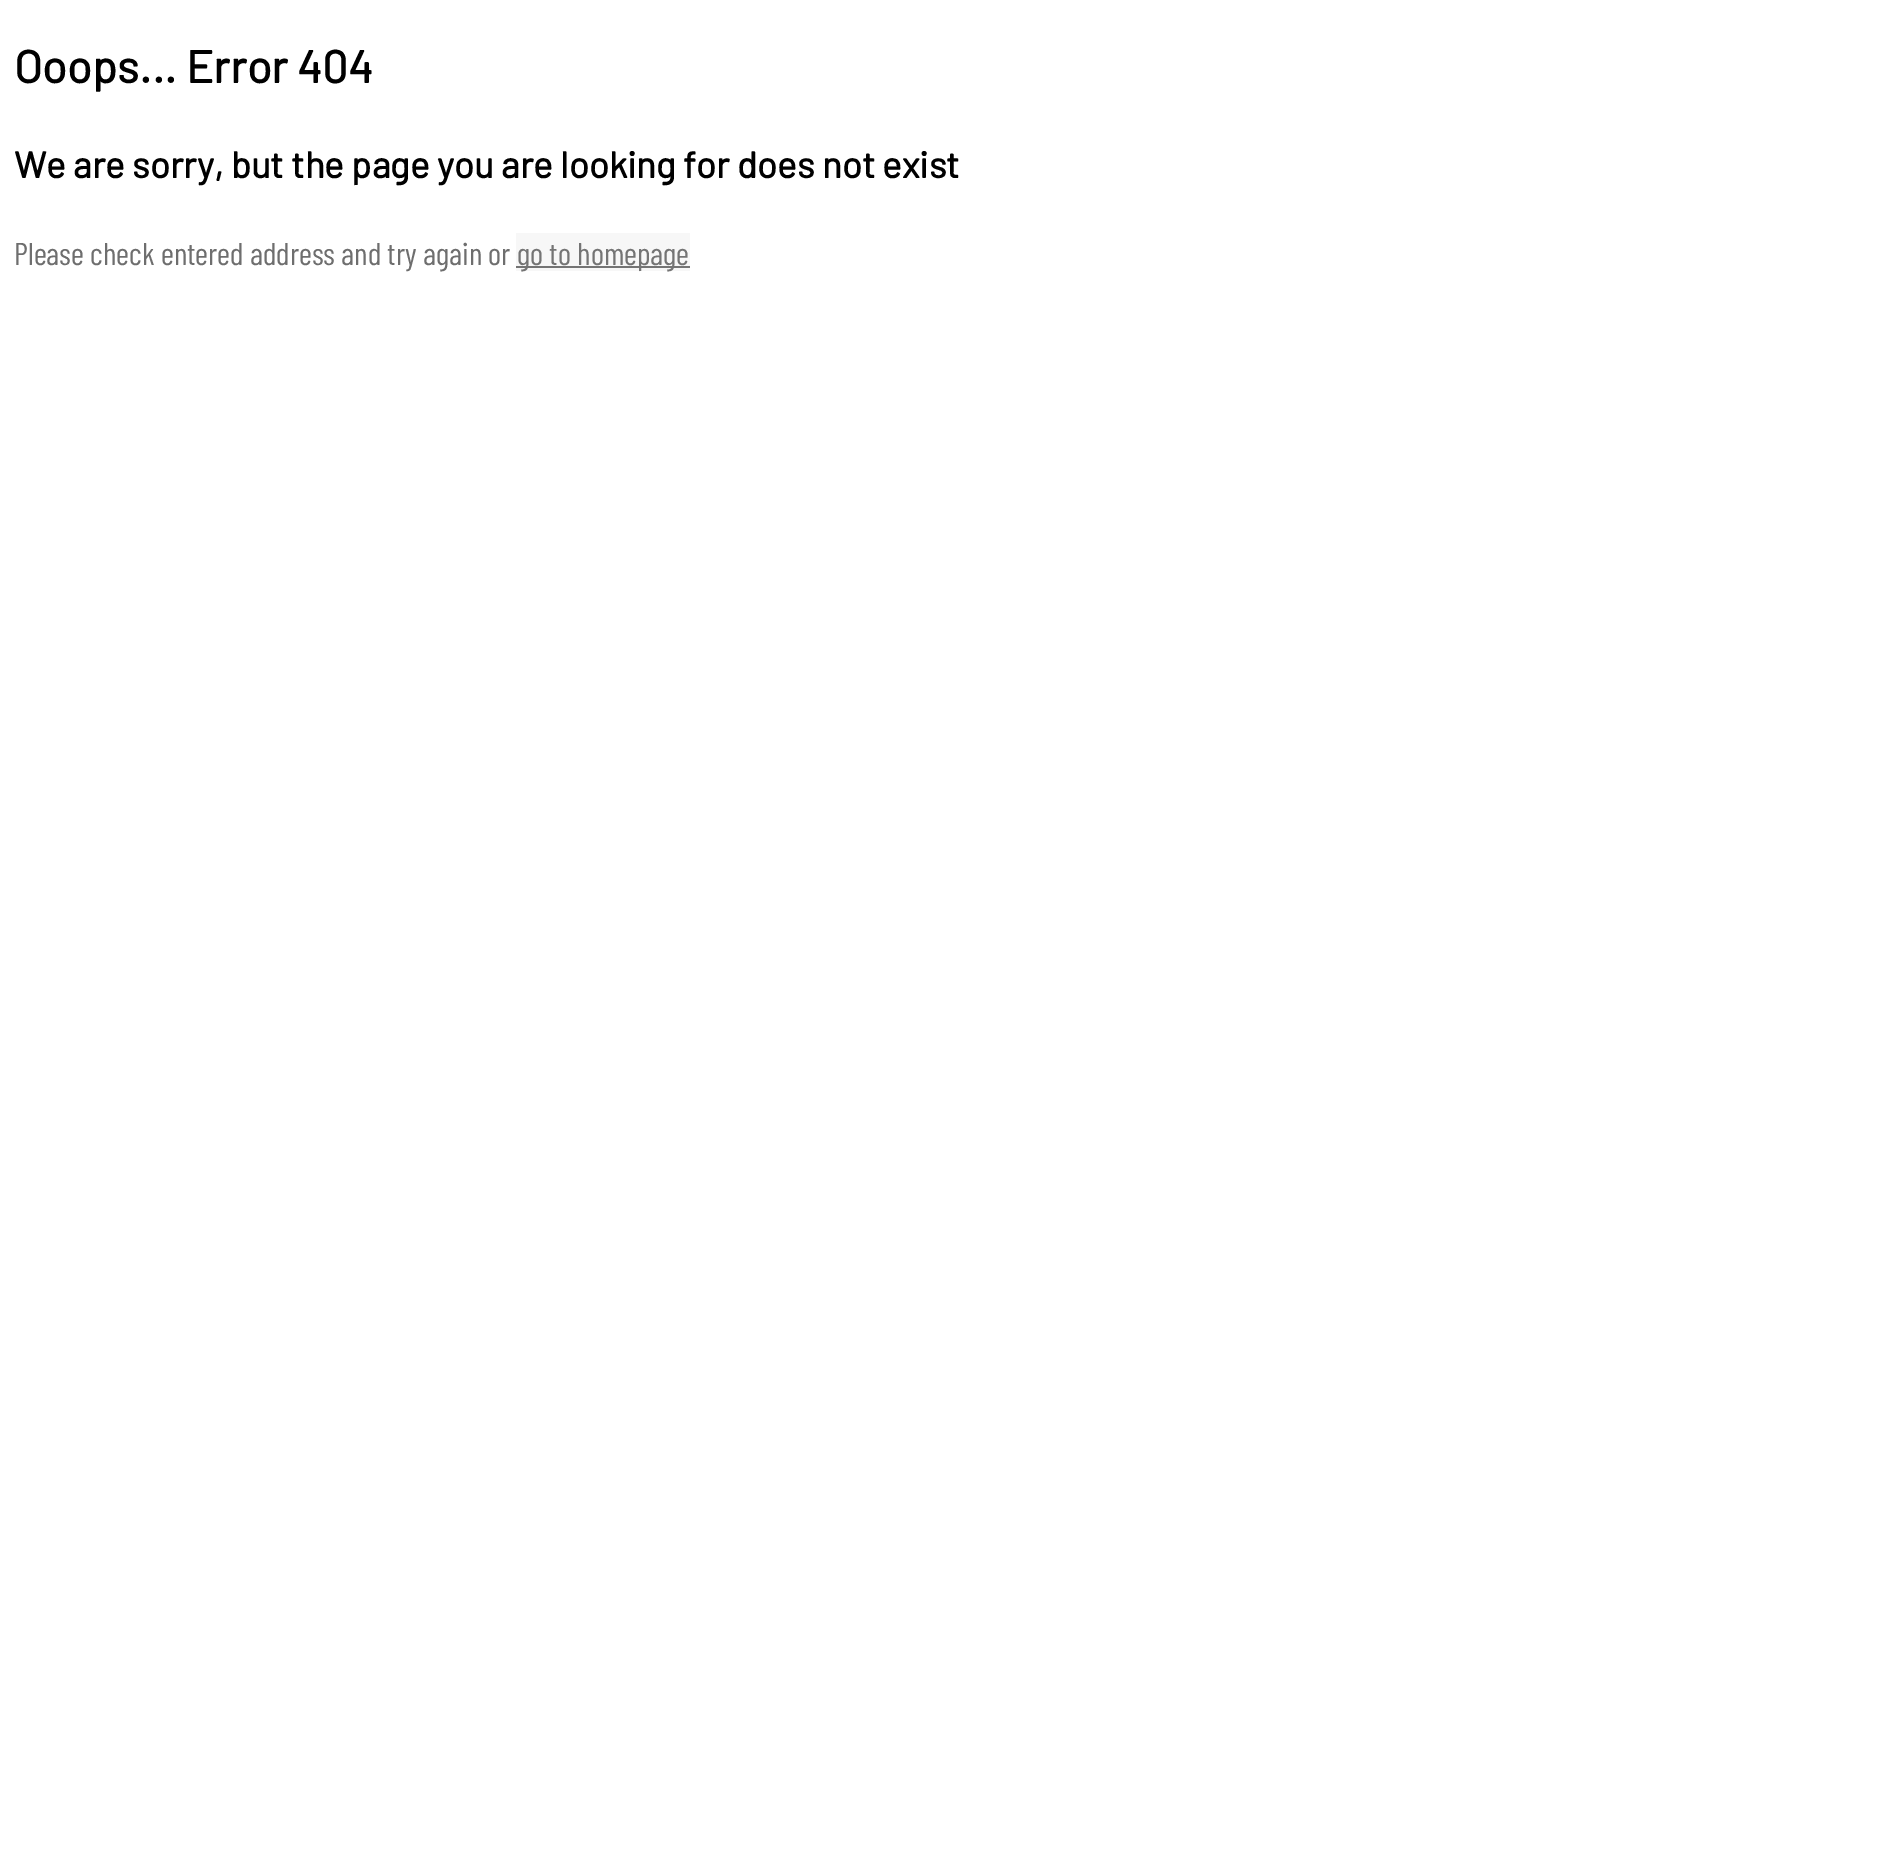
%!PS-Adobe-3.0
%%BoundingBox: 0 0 1888 1861
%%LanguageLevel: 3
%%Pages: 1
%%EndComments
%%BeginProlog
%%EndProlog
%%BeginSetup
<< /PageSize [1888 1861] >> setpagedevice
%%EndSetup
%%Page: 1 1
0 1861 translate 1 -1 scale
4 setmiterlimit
1 setgray
0 0 1888 1861 rectfill
0.969 setgray
516 233 174 38 rectfill
0.455 setgray
516 266 174 2 rectfill
/Barlow-Bold [45.5 0 0 -45.5 0 0] selectfont
0 setgray
14 83 moveto (Ooops... Error 404) show
/Barlow-Bold [36.75 0 0 -36.75 0 0] selectfont
14 178 moveto (We are sorry, but the page you are looking for does not exist) show
/BarlowCondensed-Regular [31.5 0 0 -31.5 0 0] selectfont
0.431 setgray
14 265 moveto (Please check entered address and try again or) show
0.455 setgray
517 265 moveto (go to homepage) show
showpage
%%EOF
